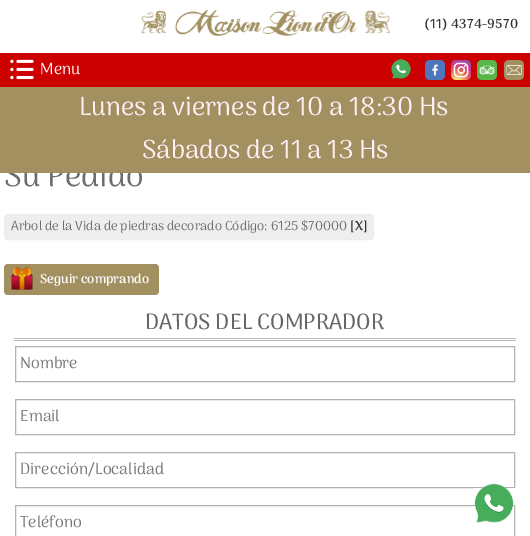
%!PS-Adobe-3.0
%%BoundingBox: 0 0 530 536
%%LanguageLevel: 3
%%Pages: 1
%%EndComments
%%BeginProlog
/rrect { 5 dict begin { /r /h /w /y /x } { exch def } forall
  x r add y moveto x w add y 2 copy h add r arct x w add y h add x 1 index r arct
  x y h add x y r arct x y 2 copy exch w add exch r arct closepath end } def
/drawimage { 5 dict begin { /h /w /y /x /name } { exch def } forall
  gsave x y translate w h scale
  w h 8 [w 0 0 h 0 0] name (r) file false 3 colorimage grestore end } def
%%EndProlog
%%BeginSetup
<< /PageSize [530 536] >> setpagedevice
%%EndSetup
%%Page: 1 1
0 536 translate 1 -1 scale
4 setmiterlimit
1 setgray
0 0 530 536 rectfill
(images/1.raw) 141 10 249 26 drawimage
0.8 0 0 setrgbcolor
0 53 530 34 rectfill
(images/2.raw) 10 59 24 21 drawimage
(images/3.raw) 391 59 20 20 drawimage
(images/4.raw) 425 60 20 20 drawimage
(images/5.raw) 451 60 20 20 drawimage
(images/6.raw) 477 60 20 20 drawimage
(images/7.raw) 504 60 20 20 drawimage
0.933 setgray
4.5 214.5 369 25 3.5 rrect gsave fill grestore
0.929 setgray
stroke
0.635 0.565 0.38 setrgbcolor
4 264 155 31 4 rrect fill
(images/8.raw) 11 267 22 23 drawimage
0.733 setgray
14 338 502 1 rectfill
14 340 502 1 rectfill
0.698 setgray
15.5 346.5 499 35 rectstroke
15.5 399.5 499 35 rectstroke
15.5 452.5 499 35 rectstroke
15.5 505.5 499 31 rectstroke
(images/9.raw) 474 483 40 40 drawimage
/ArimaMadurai-Bold [13 0 0 -13 0 0] selectfont
0.2 setgray
424 28 moveto 0.25 0 (\(11\) 4374-9570) ashow
/ArimaMadurai-Regular [16 0 0 -16 0 0] selectfont
1 setgray
40 74 moveto (Menu) show
/ArimaMadurai-Regular [32 0 0 -32 0 0] selectfont
0.431 0.427 0.427 setrgbcolor
4 186 moveto (Su Pedido) show
0.635 0.565 0.38 setrgbcolor
0 87 530 86 rectfill
/ArimaMadurai-Regular [26 0 0 -26 0 0] selectfont
1 0.941 0.961 setrgbcolor
142 158 moveto (Sábados de 11 a 13 Hs) show
79 115 moveto (Lunes a viernes de 10 a 18:30 Hs) show
/ArimaMadurai-Regular [13 0 0 -13 0 0] selectfont
0.431 0.427 0.427 setrgbcolor
11 230 moveto (Arbol de la Vida de piedras decorado Código: 6125 $70000) show
/ArimaMadurai-Bold [13 0 0 -13 0 0] selectfont
0.2 setgray
350 230 moveto ([X]) show
1 setgray
40 283 moveto (Seguir comprando) show
/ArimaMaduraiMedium-Medium [22 0 0 -22 0 0] selectfont
0.4 setgray
145 329 moveto (DATOS DEL COMPRADOR) show
/ArimaMadurai-Regular [16 0 0 -16 0 0] selectfont
0.459 setgray
20 368 moveto (Nombre) show
20 421 moveto (Email) show
20 474 moveto (Dirección/Localidad) show
20 527 moveto (Teléfono) show
showpage
%%EOF
